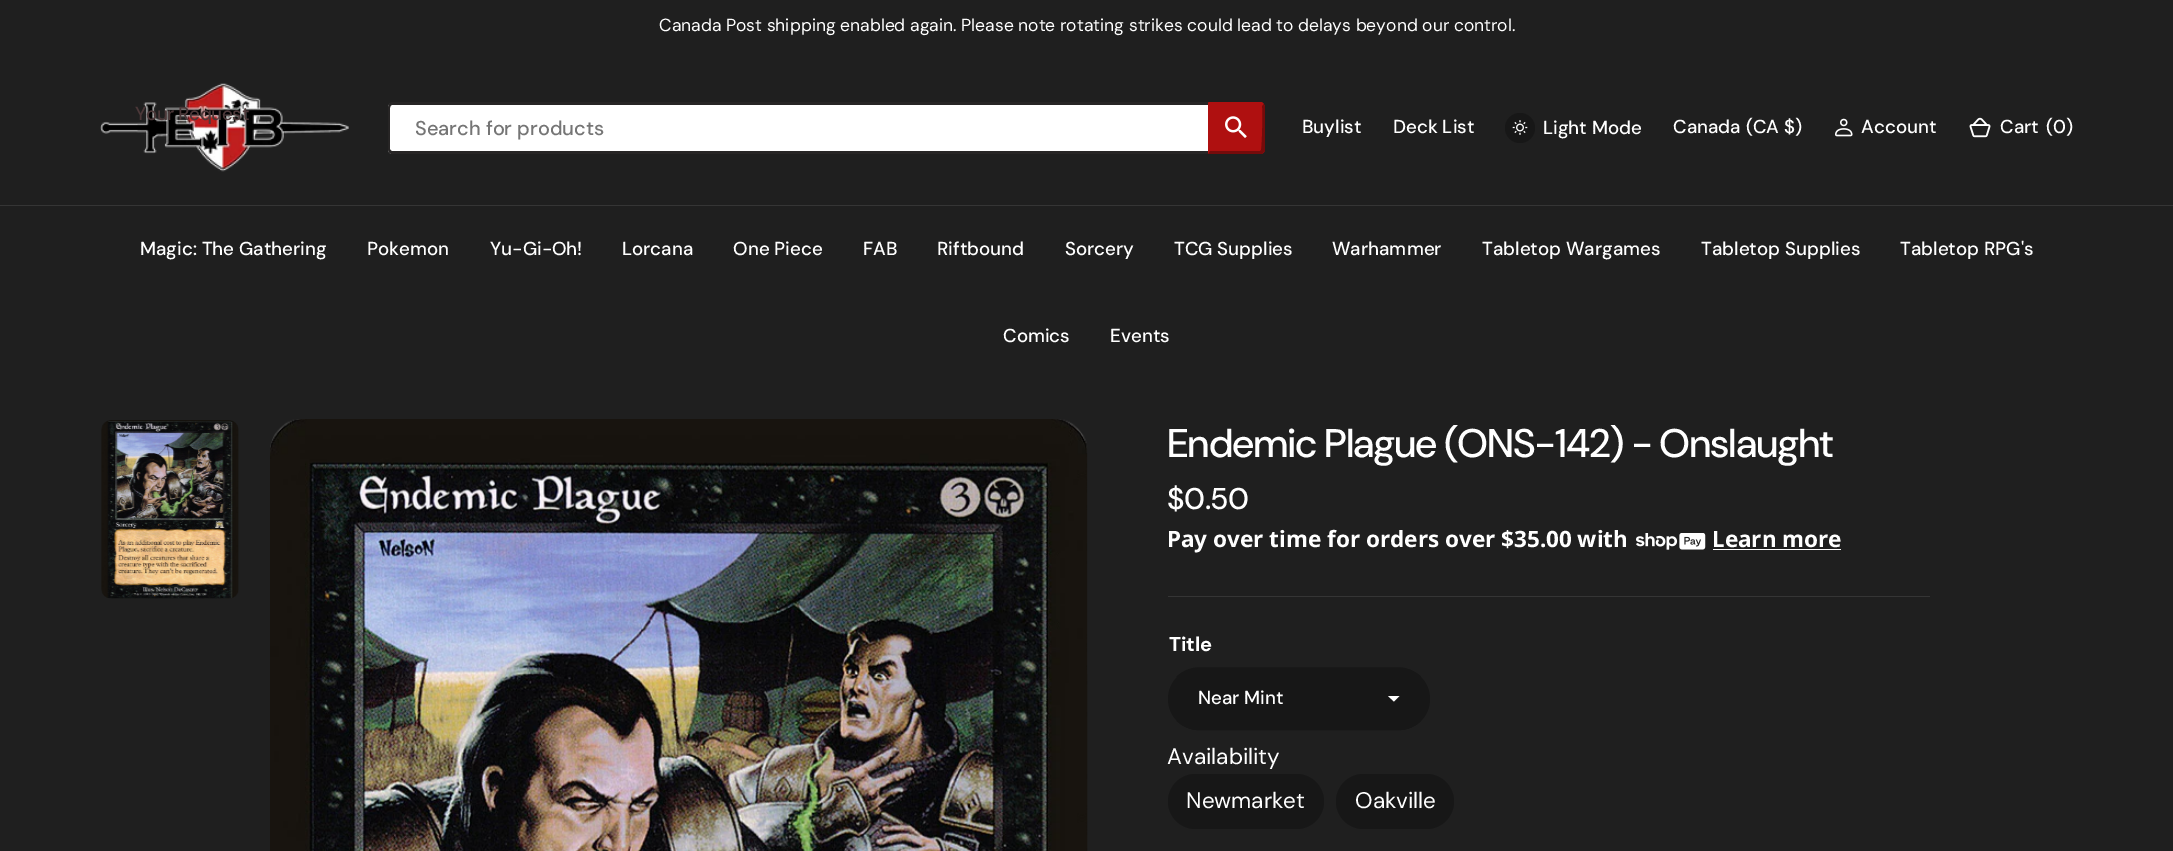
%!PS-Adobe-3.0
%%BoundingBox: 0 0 2173 851
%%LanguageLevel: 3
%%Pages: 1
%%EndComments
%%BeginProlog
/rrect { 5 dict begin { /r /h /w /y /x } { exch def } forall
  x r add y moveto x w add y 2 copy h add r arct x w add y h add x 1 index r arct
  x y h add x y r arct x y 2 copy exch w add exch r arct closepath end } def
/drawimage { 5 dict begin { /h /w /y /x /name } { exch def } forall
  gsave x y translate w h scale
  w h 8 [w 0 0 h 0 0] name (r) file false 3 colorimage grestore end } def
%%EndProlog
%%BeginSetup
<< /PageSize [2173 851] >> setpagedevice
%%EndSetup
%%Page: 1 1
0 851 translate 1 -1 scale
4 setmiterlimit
0.122 setgray
0 0 2173 851 rectfill
0.208 setgray
0 205 2173 1 rectfill
(images/1.raw) 100 83 249 89 drawimage
1 setgray
newpath 393 103 moveto 1208 103 lineto 1208 154 lineto 393 154 lineto 390 154 388 152 388 149 curveto 388 108 lineto 388 105 390 103 393 103 curveto closepath fill
0.153 0.145 0.145 setrgbcolor
newpath 392 102 moveto 1208 102 lineto 1208 154 lineto 392 154 lineto 390 154 388 152 388 149 curveto 388 108 lineto 388 105 390 102 392 102 curveto closepath 392 105 moveto 1208 105 lineto 1208 151 lineto 392 151 lineto 391 151 390 150 390 149 curveto 390 108 lineto 390 106 391 105 392 105 curveto closepath eofill
0.686 0.063 0.063 setrgbcolor
newpath 1208 103 moveto 1260 103 lineto 1263 103 1265 105 1265 108 curveto 1265 149 lineto 1265 152 1263 154 1260 154 curveto 1208 154 lineto closepath fill
newpath 1210 105 moveto 1208 102 lineto 1262 102 lineto 1264 104 lineto 1262 106 lineto 1260 105 lineto closepath fill
0.459 0.043 0.043 setrgbcolor
newpath 1265 149 moveto 1265 108 lineto 1265 106 1264 105 1264 104 curveto 1262 106 lineto 1263 108 1262 149 1261 150 curveto 1264 152 lineto 1265 152 1265 150 1265 149 curveto closepath fill
newpath 1208 154 moveto 1210 151 lineto 1260 151 lineto 1261 150 lineto 1264 152 lineto 1262 154 lineto closepath fill
0.686 0.063 0.063 setrgbcolor
newpath 1210 105 moveto 1210 151 lineto 1208 153 lineto 1208 103 lineto closepath fill
(images/2.raw) 1225 116 22 22 drawimage
0.09 setgray
newpath 1520 128 15 0 360 arc closepath fill
(images/3.raw) 1512 120 16 15 drawimage
(images/4.raw) 1835 118 18 19 drawimage
(images/5.raw) 1969 117 22 21 drawimage
(images/6.raw) 101 420 138 179 drawimage
(images/7.raw) 270 419 818 432 drawimage
(images/8.raw) 1636 533 70 17 drawimage
1 setgray
1713 549 128 1 rectfill
0.208 setgray
1168 596 762 1 rectfill
0.09 setgray
1168 668 262 62 31 rrect fill
1.2 setlinewidth
newpath 1177 677 moveto 1183 671.5 1190.5 668 1199 668 curveto 1399 668 lineto 1407 668 1414.5 671.5 1420.5 677 curveto stroke
newpath 1420.5 720.5 moveto 1414.5 726 1407 729.5 1399 729.5 curveto 1199 729.5 lineto 1190.5 729.5 1183 726 1177 720.5 curveto stroke
1 setgray
newpath 1394 701.5 moveto 1388 696 lineto 1399.5 696 lineto closepath fill
0.09 setgray
1168 774 156 55 27.5 rrect fill
1336 774 118 55 27.5 rrect fill
/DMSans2-Regular [17.5 0 0 -17.5 0 0] selectfont
1 setgray
659 31 moveto (Canada Post shipping enabled again. Please note rotating strikes could lead to delays beyond our control.) show
/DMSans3-Medium [18.75 0 0 -18.75 0 0] selectfont
0.298 0.22 0.224 setrgbcolor
135 120 moveto -0.4 0 (Your Request) ashow
/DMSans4-Medium [20 0 0 -20 0 0] selectfont
0.459 setgray
415 135 moveto (Search for products) show
/DMSans3-Medium [18.75 0 0 -18.75 0 0] selectfont
1 setgray
1302 133 moveto (Buylist) show
1393 133 moveto (Deck List) show
1543 134 moveto (Light Mode) show
1673 133 moveto (Canada \(CA $\)) show
1861 133 moveto (Account) show
2000 133 moveto (Cart) show
2046 133 moveto (\(0\)) show
140 255 moveto (Magic: The Gathering) show
367 255 moveto (Pokemon) show
490 255 moveto (Yu-Gi-Oh!) show
622 255 moveto (Lorcana) show
733 255 moveto (One Piece) show
863 255 moveto (FAB) show
937 255 moveto (Riftbound) show
1065 255 moveto (Sorcery) show
1174 255 moveto (TCG Supplies) show
1332 255 moveto (Warhammer) show
1482 255 moveto (Tabletop Wargames) show
1701 255 moveto (Tabletop Supplies) show
1900 255 moveto (Tabletop RPG's) show
1003 342 moveto (Comics) show
1110 342 moveto (Events) show
/DMSans-Medium [39.9 0 0 -39.9 0 0] selectfont
1167 457 moveto -1.2 0 (Endemic Plague \(ONS-142\) - Onslaught) ashow
/DMSans2-Medium [30 0 0 -30 0 0] selectfont
1167 509 moveto -0.5 0 ($0.50) ashow
/NotoSans-Bold [22.5 0 0 -22.5 0 0] selectfont
1167 547 moveto (Pay over time for orders over $35.00 with) show
1712 547 moveto (Learn more) show
/DMSans-Bold [20 0 0 -20 0 0] selectfont
1169 651 moveto (Title) show
/DMSans3-Medium [18.75 0 0 -18.75 0 0] selectfont
1198 704 moveto (Near Mint) show
/DMSans-Regular [22.5 0 0 -22.5 0 0] selectfont
1167 764 moveto (Availability) show
1186 808 moveto (Newmarket) show
1355 808 moveto (Oakville) show
showpage
%%EOF
